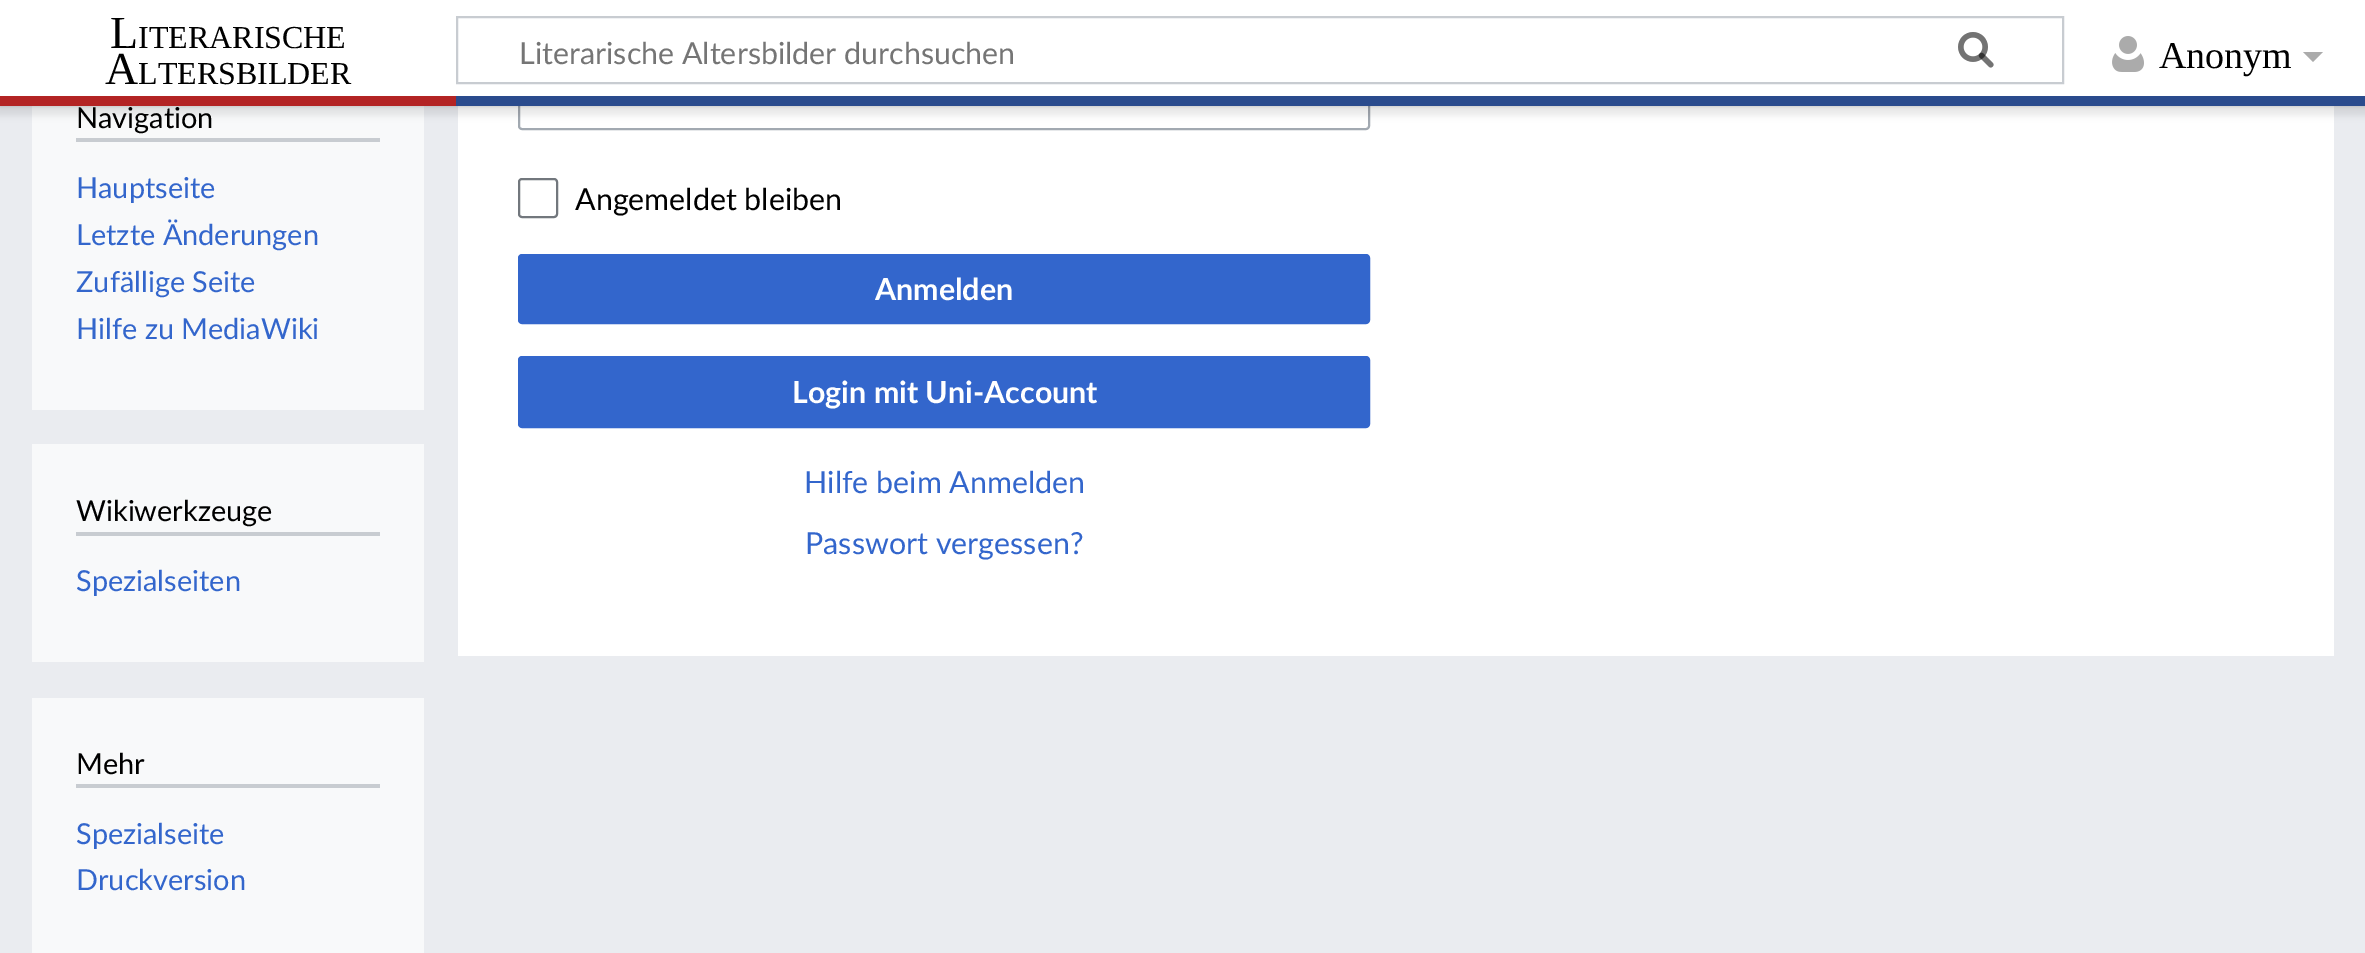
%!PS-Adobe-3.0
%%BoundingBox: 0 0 2365 953
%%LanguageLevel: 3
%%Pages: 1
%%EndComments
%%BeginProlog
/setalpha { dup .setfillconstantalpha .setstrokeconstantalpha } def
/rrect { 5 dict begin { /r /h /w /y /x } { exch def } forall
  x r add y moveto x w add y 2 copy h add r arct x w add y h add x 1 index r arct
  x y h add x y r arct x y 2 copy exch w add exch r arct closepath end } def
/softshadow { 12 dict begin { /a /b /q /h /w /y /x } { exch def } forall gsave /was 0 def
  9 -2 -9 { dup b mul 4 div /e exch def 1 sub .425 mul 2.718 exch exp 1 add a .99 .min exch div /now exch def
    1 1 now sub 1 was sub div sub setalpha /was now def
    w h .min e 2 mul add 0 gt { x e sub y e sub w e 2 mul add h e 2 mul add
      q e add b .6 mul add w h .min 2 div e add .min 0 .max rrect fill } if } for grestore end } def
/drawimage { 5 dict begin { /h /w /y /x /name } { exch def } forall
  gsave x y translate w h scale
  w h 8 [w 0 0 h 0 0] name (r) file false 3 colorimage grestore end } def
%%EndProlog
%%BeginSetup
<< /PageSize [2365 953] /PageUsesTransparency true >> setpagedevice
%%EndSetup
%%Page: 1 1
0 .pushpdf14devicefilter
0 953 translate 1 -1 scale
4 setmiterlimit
0.918 0.925 0.941 setrgbcolor
0 0 2365 953 rectfill
0.973 0.976 0.98 setrgbcolor
32 106 392 304 rectfill
1 setgray
458 106 1876 550 rectfill
0.635 0.663 0.694 setrgbcolor
2 setlinewidth
519 65 850 64 3 rrect stroke
0 setgray
0 96 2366 10 0 2 0.2 softshadow
-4 98 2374 18 0 3 0.07 softshadow
1 setgray
0 0 2365 96 rectfill
0.784 0.8 0.82 setrgbcolor
457 17 1606 66 rectstroke
(images/1.raw) 1958 32 36 36 drawimage
(images/2.raw) 1958 32 36 36 drawimage
(images/3.raw) 2112 36 32 36 drawimage
0.671 setgray
newpath 2323 52 moveto 2313 62 lineto 2303 52 lineto closepath fill
0.702 0.141 0.141 setrgbcolor
0 96 456 10 rectfill
0.165 0.294 0.553 setrgbcolor
456 96 1909 10 rectfill
0.784 0.8 0.82 setrgbcolor
76 138 304 4 rectfill
0.973 0.976 0.98 setrgbcolor
32 444 392 218 rectfill
0.784 0.8 0.82 setrgbcolor
76 532 304 4 rectfill
0.447 0.467 0.49 setrgbcolor
519 179 38 38 3 rrect stroke
0.2 0.4 0.8 setrgbcolor
519 255 850 68 3 rrect gsave fill grestore
stroke
519 357 850 70 3 rrect gsave fill grestore
stroke
0.973 0.976 0.98 setrgbcolor
32 698 392 255 rectfill
0.784 0.8 0.82 setrgbcolor
76 784 304 4 rectfill
/LiberationSerif-Regular [46 0 0 -46 0 0] selectfont
0 setgray
110 48 moveto (L) show
/LiberationSerif-Regular [32 0 0 -32 0 0] selectfont
138 48 moveto (ITERARISCHE) show
/LiberationSerif-Regular [46 0 0 -46 0 0] selectfont
105 84 moveto (A) show
/LiberationSerif-Regular [32 0 0 -32 0 0] selectfont
138 84 moveto (LTERSBILDER) show
/Lato-Regular [30.4 0 0 -30.4 0 0] selectfont
0.459 setgray
519 64 moveto (Literarische Altersbilder durchsuchen) show
/LiberationSerif-Regular [38 0 0 -38 0 0] selectfont
0 setgray
2159 68 moveto (Anonym) show
/Lato-Regular [28.9 0 0 -28.9 0 0] selectfont
76 128 moveto (Navigation) show
0.2 0.4 0.8 setrgbcolor
76 198 moveto (Hauptseite) show
76 245 moveto (Letzte Änderungen) show
76 292 moveto (Zufällige Seite) show
76 339 moveto (Hilfe zu MediaWiki) show
0 setgray
76 521 moveto (Wikiwerkzeuge) show
0.2 0.4 0.8 setrgbcolor
76 591 moveto (Spezialseiten) show
/Lato-Regular [30.4 0 0 -30.4 0 0] selectfont
0 setgray
575 210 moveto (Angemeldet bleiben) show
/Lato-Bold [30.4 0 0 -30.4 0 0] selectfont
1 setgray
875 300 moveto (Anmelden) show
792 403 moveto (Login mit Uni-Account) show
/Lato-Regular [30.4 0 0 -30.4 0 0] selectfont
0.2 0.4 0.8 setrgbcolor
804 493 moveto (Hilfe beim Anmelden) show
805 554 moveto (Passwort vergessen?) show
/Lato-Regular [28.9 0 0 -28.9 0 0] selectfont
0 setgray
76 774 moveto (Mehr) show
0.2 0.4 0.8 setrgbcolor
76 844 moveto (Spezialseite) show
76 890 moveto (Druckversion) show
.poppdf14devicefilter showpage
%%EOF
